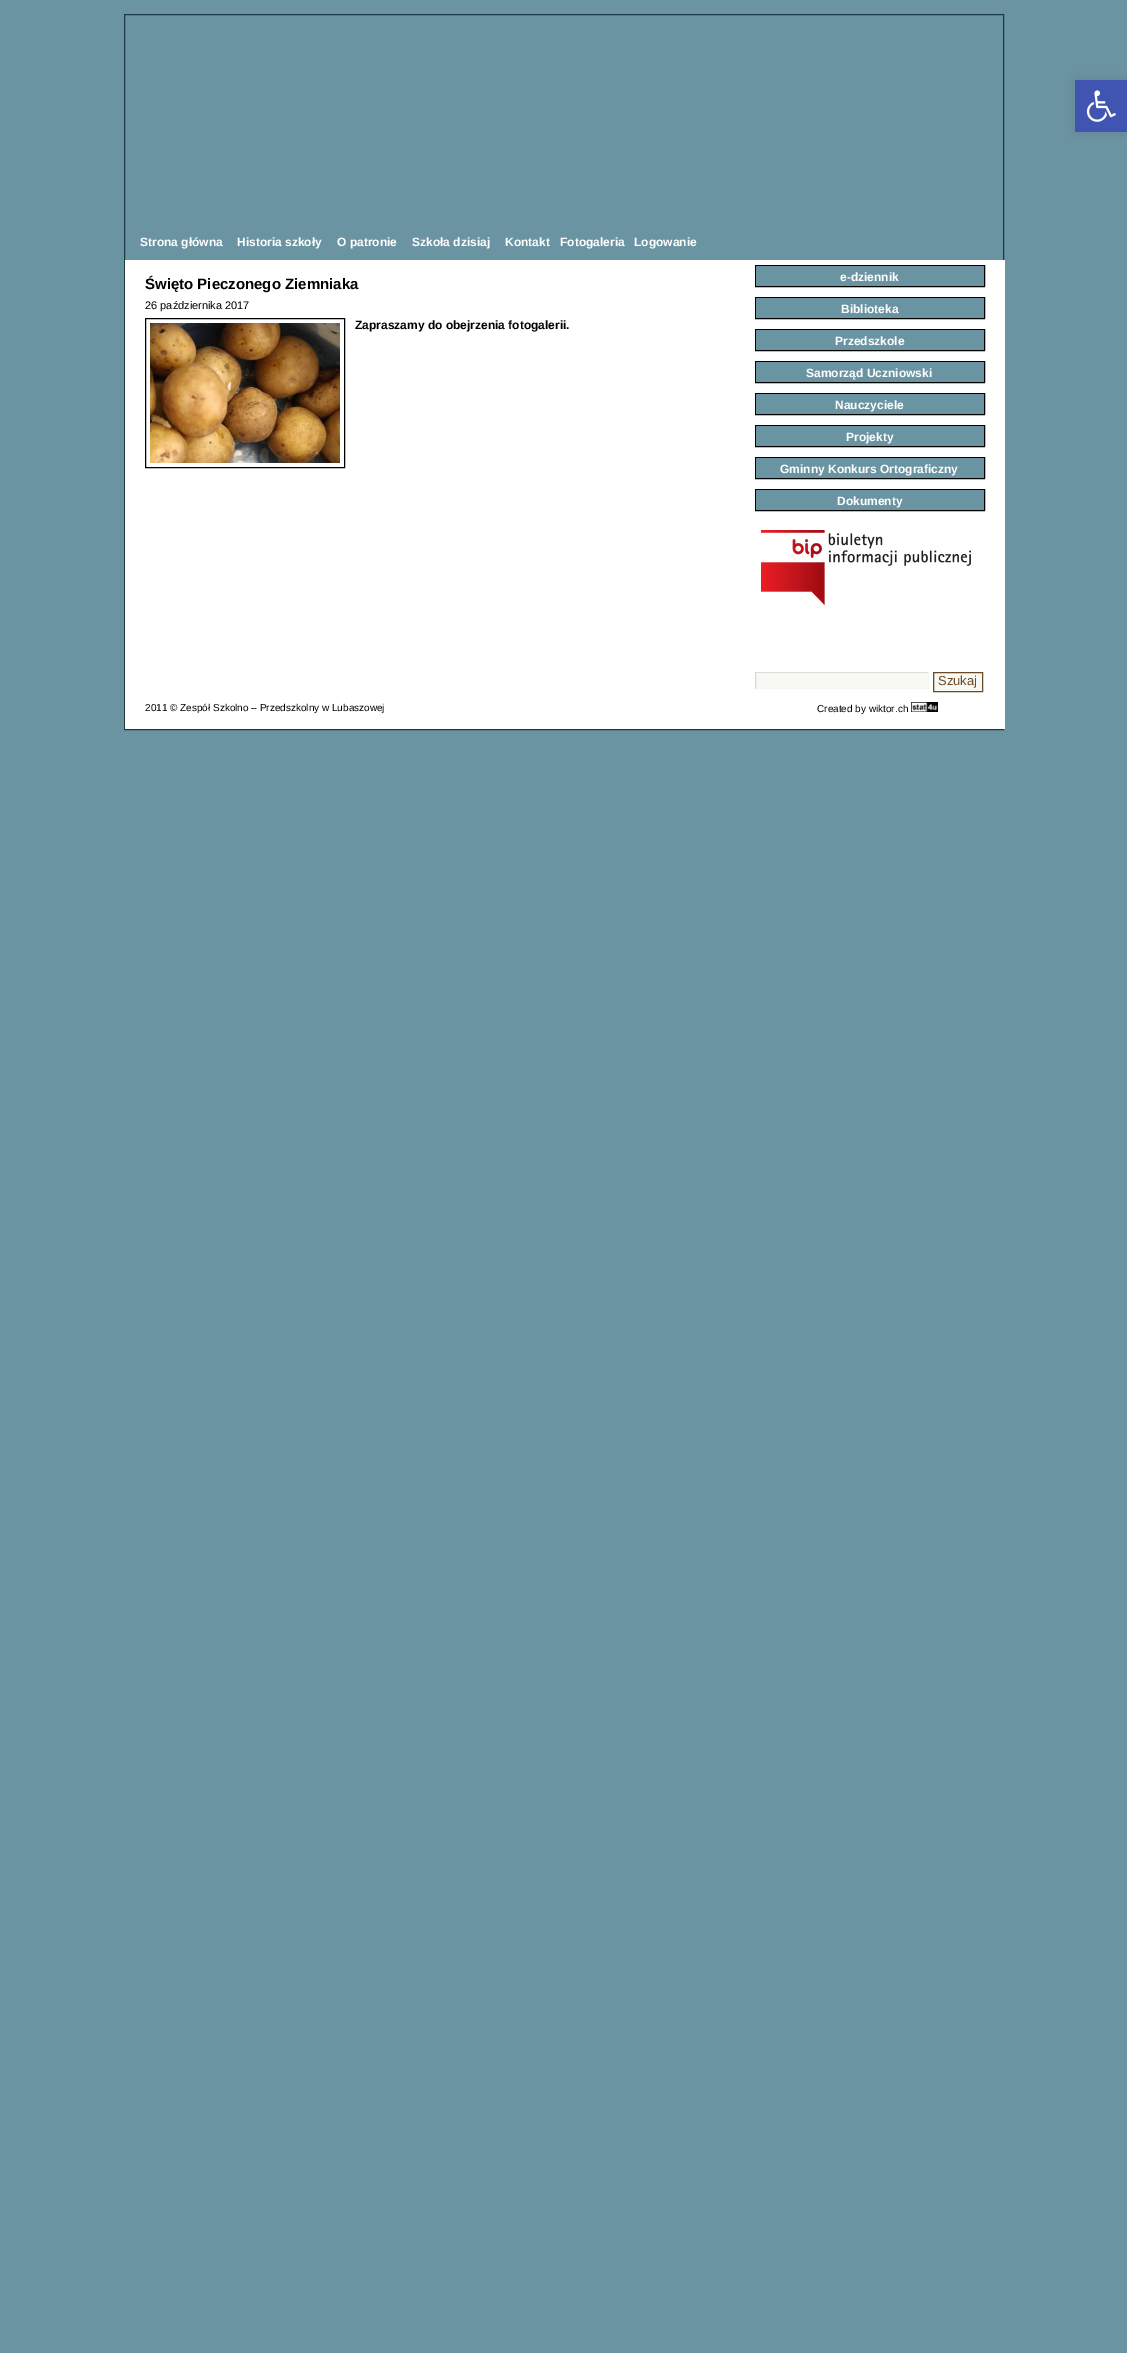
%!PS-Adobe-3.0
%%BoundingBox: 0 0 1127 2353
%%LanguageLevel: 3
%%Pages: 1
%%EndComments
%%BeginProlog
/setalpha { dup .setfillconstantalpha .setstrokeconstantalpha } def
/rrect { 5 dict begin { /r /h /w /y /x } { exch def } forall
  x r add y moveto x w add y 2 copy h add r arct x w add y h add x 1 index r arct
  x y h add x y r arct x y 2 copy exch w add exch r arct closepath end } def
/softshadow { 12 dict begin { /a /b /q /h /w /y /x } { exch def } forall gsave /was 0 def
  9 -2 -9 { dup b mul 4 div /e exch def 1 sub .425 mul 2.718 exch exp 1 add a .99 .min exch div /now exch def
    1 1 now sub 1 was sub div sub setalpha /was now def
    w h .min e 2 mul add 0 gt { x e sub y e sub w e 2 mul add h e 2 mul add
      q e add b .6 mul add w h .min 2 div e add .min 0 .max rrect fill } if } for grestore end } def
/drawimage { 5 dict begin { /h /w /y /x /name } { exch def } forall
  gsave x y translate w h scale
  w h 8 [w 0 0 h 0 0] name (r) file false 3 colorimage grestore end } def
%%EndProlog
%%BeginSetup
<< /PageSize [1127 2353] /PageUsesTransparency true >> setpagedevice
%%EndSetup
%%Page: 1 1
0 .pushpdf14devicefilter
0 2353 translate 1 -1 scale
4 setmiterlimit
0.42 0.58 0.635 setrgbcolor
0 0 1127 2353 rectfill
0 setgray
1075 80 52 52 0 5 0.1 softshadow
0.251 0.329 0.698 setrgbcolor
1075 80 52 52 rectfill
(images/1.raw) 1086 90 30 32 drawimage
0.102 0.227 0.267 setrgbcolor
124.5 14.5 879 715 rectstroke
1 setgray
125 260 880 469 rectfill
0 setgray
145.5 318.5 199 149 rectstroke
(images/2.raw) 150 323 190 140 drawimage
755.5 265.5 229 21 rectstroke
0.42 0.58 0.635 setrgbcolor
756 266 228 20 rectfill
0 setgray
755.5 297.5 229 21 rectstroke
0.42 0.58 0.635 setrgbcolor
756 298 228 20 rectfill
0 setgray
755.5 329.5 229 21 rectstroke
0.42 0.58 0.635 setrgbcolor
756 330 228 20 rectfill
0 setgray
755.5 361.5 229 21 rectstroke
0.42 0.58 0.635 setrgbcolor
756 362 228 20 rectfill
0 setgray
755.5 393.5 229 21 rectstroke
0.42 0.58 0.635 setrgbcolor
756 394 228 20 rectfill
0 setgray
755.5 425.5 229 21 rectstroke
0.42 0.58 0.635 setrgbcolor
756 426 228 20 rectfill
0 setgray
755.5 457.5 229 21 rectstroke
0.42 0.58 0.635 setrgbcolor
756 458 228 20 rectfill
0 setgray
755.5 489.5 229 21 rectstroke
0.42 0.58 0.635 setrgbcolor
756 490 228 20 rectfill
(images/3.raw) 761 530 210 75 drawimage
0.973 0.973 0.961 setrgbcolor
757 673 171 15 rectfill
0.937 0.937 0.914 setrgbcolor
756 672 1 17 rectfill
0.867 0.859 0.831 setrgbcolor
755 672 174 1 rectfill
0.961 0.961 0.945 setrgbcolor
928 672 1 17 rectfill
755 688 174 1 rectfill
0.867 0.859 0.831 setrgbcolor
755 672 1 17 rectfill
0.973 0.973 0.961 setrgbcolor
935 673 47 18 rectfill
0.937 0.937 0.914 setrgbcolor
934 672 1 20 rectfill
0.424 0.29 0.157 setrgbcolor
933.5 672.5 49 19 rectstroke
(images/4.raw) 911 702 27 10 drawimage
/LiberationSans-Bold [12 0 0 -12 0 0] selectfont
1 setgray
140 246 moveto (Strona główna) show
237 246 moveto (Historia szkoły) show
337 246 moveto (O patronie) show
412 246 moveto (Szkoła dzisiaj) show
505 246 moveto (Kontakt) show
560 246 moveto (Fotogaleria) show
634 246 moveto (Logowanie) show
/LiberationSans-Bold [15 0 0 -15 0 0] selectfont
0 setgray
145 289 moveto (Święto Pieczonego Ziemniaka) show
/LiberationSans-Regular [11 0 0 -11 0 0] selectfont
145 309 moveto (26 października 2017) show
/LiberationSans-Bold [12 0 0 -12 0 0] selectfont
355 329 moveto (Zapraszamy do obejrzenia fotogalerii.) show
1 setgray
840 281 moveto (e-dziennik) show
841 313 moveto (Biblioteka) show
835 345 moveto (Przedszkole) show
806 377 moveto (Samorząd Uczniowski) show
835 409 moveto (Nauczyciele) show
846 441 moveto (Projekty) show
780 473 moveto (Gminny Konkurs Ortograficzny) show
837 505 moveto (Dokumenty) show
/LiberationSans-Regular [13 0 0 -13 0 0] selectfont
0.424 0.29 0.157 setrgbcolor
938 685 moveto (Szukaj) show
/LiberationSans-Regular [10 0 0 -10 0 0] selectfont
0 setgray
145 711 moveto (2011 © Zespół Szkolno – Przedszkolny w Lubaszowej) show
817 712 moveto (Created by wiktor.ch) show
.poppdf14devicefilter showpage
%%EOF
